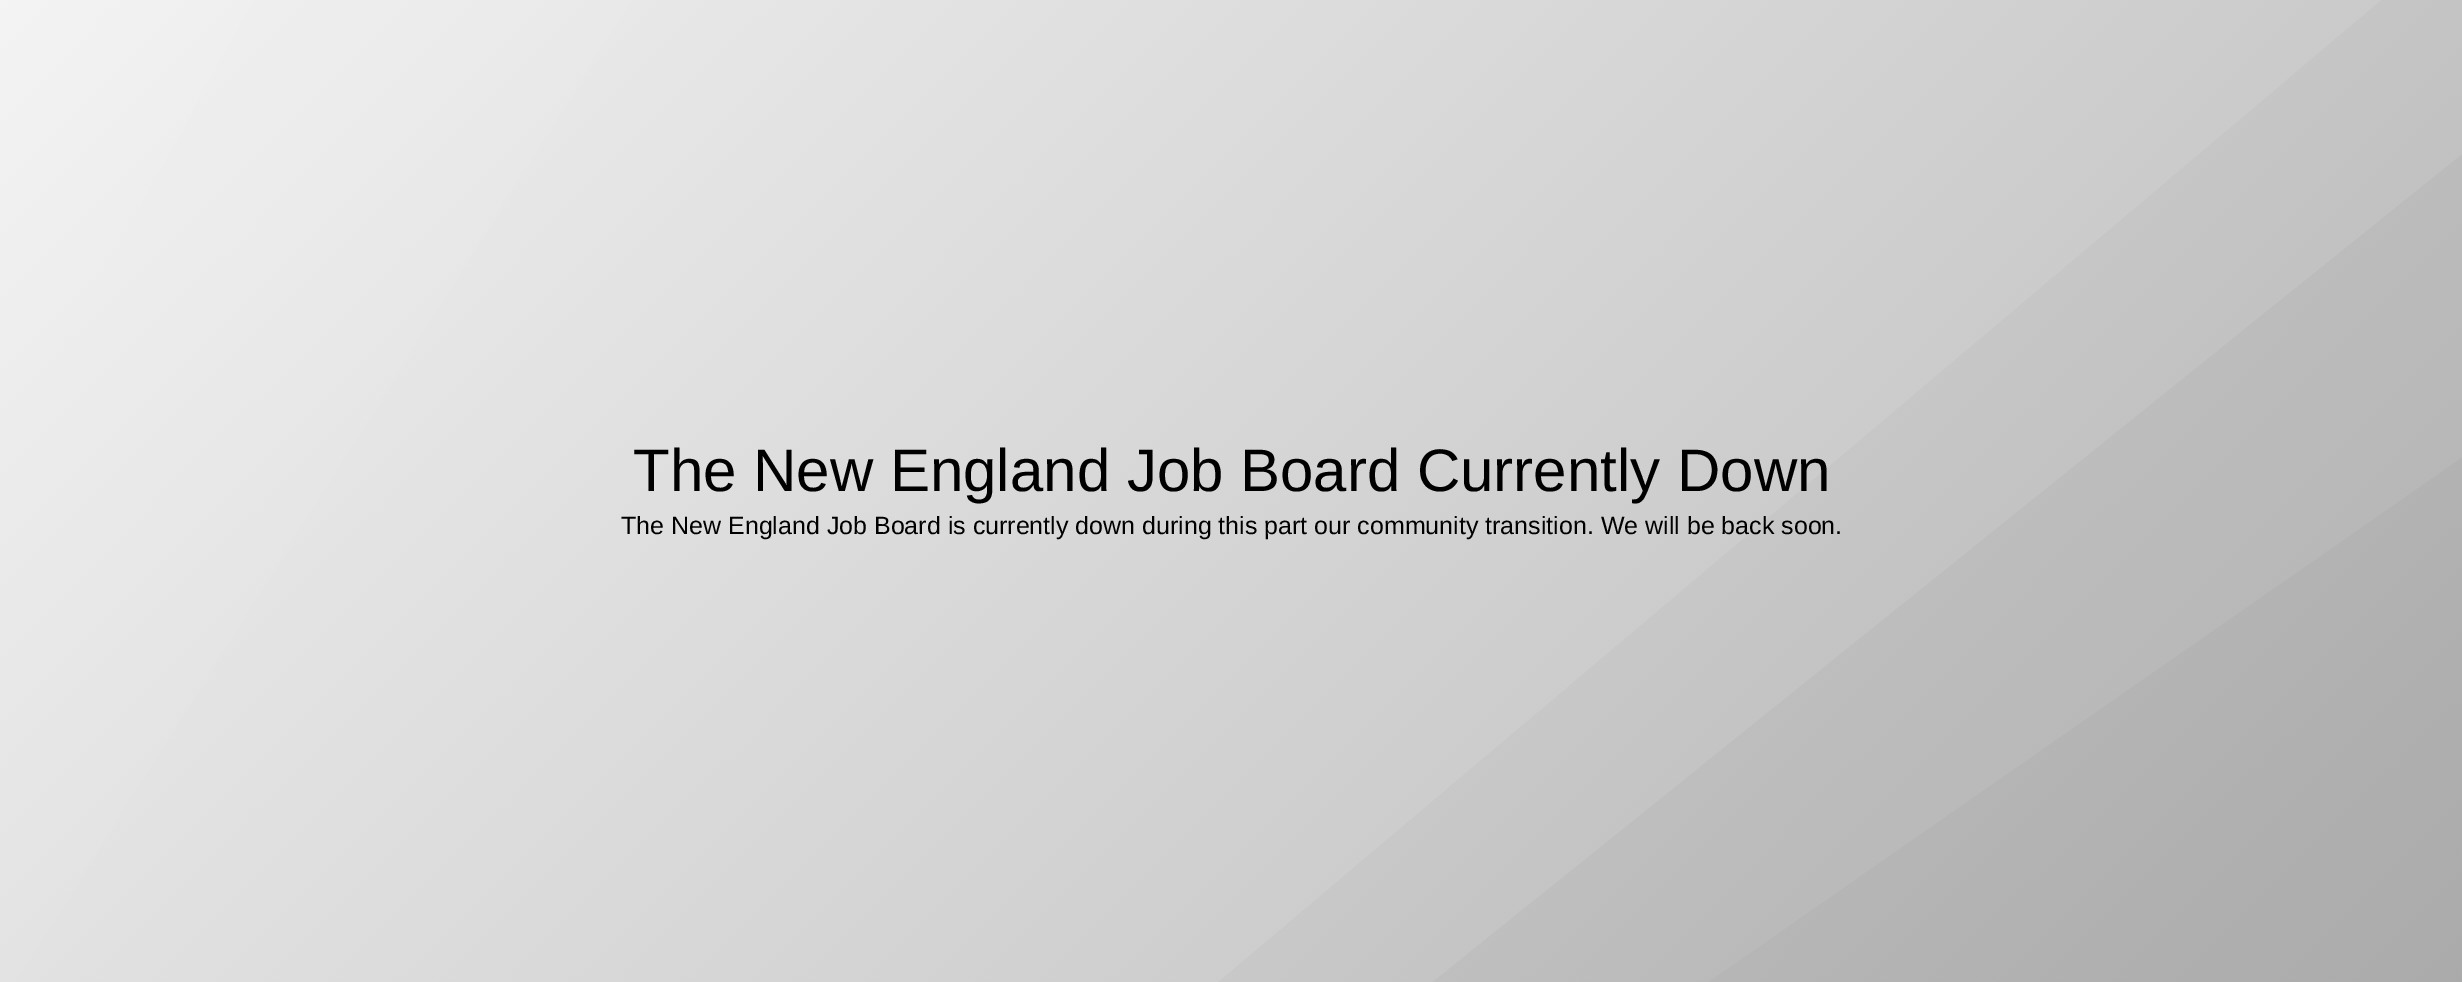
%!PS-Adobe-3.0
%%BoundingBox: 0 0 2462 982
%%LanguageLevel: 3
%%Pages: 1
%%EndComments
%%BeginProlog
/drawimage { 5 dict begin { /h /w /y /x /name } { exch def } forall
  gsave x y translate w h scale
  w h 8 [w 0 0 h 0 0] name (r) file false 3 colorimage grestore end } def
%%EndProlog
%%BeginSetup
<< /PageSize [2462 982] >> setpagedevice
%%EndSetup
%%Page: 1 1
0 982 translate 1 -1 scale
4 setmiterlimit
1 setgray
0 0 2462 982 rectfill
(images/1.raw) 0 0 2462 982 drawimage
/LiberationSans-Regular [60 0 0 -60 0 0] selectfont
0 setgray
633 491 moveto (The New England Job Board Currently Down) show
/LiberationSans-Regular [25 0 0 -25 0 0] selectfont
621 534 moveto (The New England Job Board is currently down during this part our community transition. We will be back soon.) show
showpage
%%EOF
